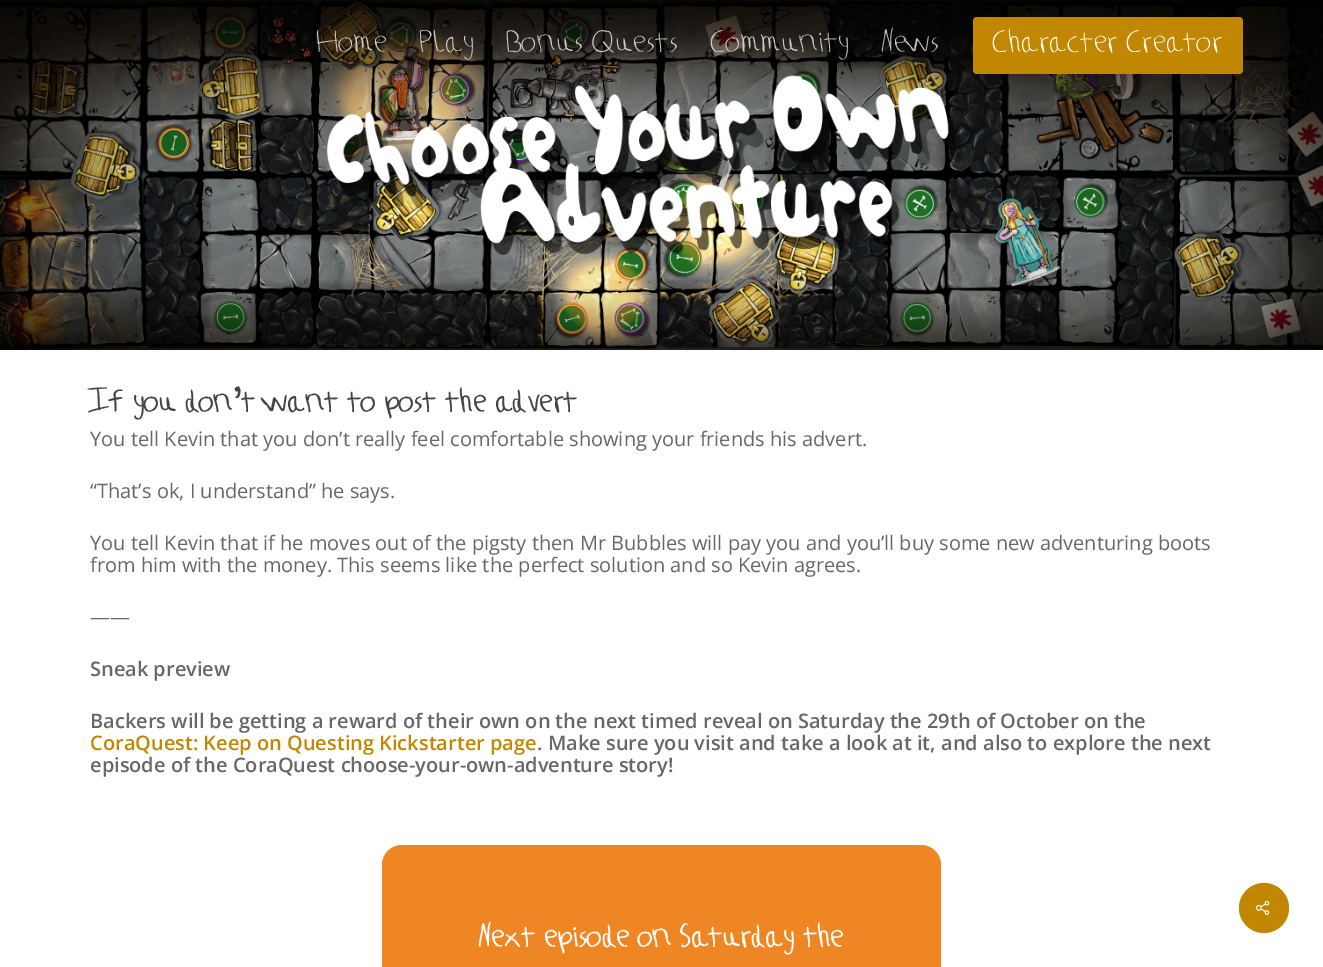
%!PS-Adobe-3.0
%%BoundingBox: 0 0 1323 967
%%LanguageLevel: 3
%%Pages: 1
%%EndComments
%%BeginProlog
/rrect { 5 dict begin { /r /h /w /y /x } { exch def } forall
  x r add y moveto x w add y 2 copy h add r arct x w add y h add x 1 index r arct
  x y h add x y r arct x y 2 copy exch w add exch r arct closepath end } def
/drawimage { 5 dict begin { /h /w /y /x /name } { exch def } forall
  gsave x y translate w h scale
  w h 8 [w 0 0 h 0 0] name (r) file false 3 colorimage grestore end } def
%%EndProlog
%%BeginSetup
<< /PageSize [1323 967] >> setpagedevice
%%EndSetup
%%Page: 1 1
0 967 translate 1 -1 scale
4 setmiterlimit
1 setgray
0 0 1323 967 rectfill
(images/1.raw) 0 0 1323 350 drawimage
0.757 0.529 0 setrgbcolor
973 17 270 57 4 rrect fill
0.933 0.525 0.137 setrgbcolor
382 845 559 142 20 rrect fill
0.757 0.529 0 setrgbcolor
newpath 1264 908 25 0 360 arc closepath fill
(images/2.raw) 1256 900 14 15 drawimage
/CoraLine-Medium [30 0 0 -30 0 0] selectfont
0.796 0.788 0.769 setrgbcolor
317 52 moveto (Home) show
420 52 moveto (Play) show
507 52 moveto (Bonus Quests) show
711 52 moveto (Community) show
0.757 setgray
882 52 moveto (News) show
1 setgray
993 52 moveto (Character Creator) show
/CoraLine-Bold [30 0 0 -30 0 0] selectfont
0.267 setgray
90 412 moveto (If you don’t want to post the advert) show
/OpenSans-Regular [20 0 0 -20 0 0] selectfont
0.404 setgray
90 446 moveto (You tell Kevin that you don’t really feel comfortable showing your friends his advert.) show
90 498 moveto (“That’s ok, I understand” he says.) show
90 550 moveto (You tell Kevin that if he moves out of the pigsty then Mr Bubbles will pay you and you’ll buy some new adventuring boots) show
90 572 moveto (from him with the money. This seems like the perfect solution and so Kevin agrees.) show
90 624 moveto (——) show
/OpenSans-SemiBold [20 0 0 -20 0 0] selectfont
90 676 moveto (Sneak preview) show
90 728 moveto (Backers will be getting a reward of their own on the next timed reveal on Saturday the 29th of October on the) show
0.757 0.529 0 setrgbcolor
90 750 moveto (CoraQuest: Keep on Questing Kickstarter page) show
0.404 setgray
537 750 moveto (. Make sure you visit and take a look at it, and also to explore the next) show
90 772 moveto (episode of the CoraQuest choose-your-own-adventure story!) show
/CoraLine-Bold [30 0 0 -30 0 0] selectfont
1 setgray
479 947 moveto (Next episode on Saturday the) show
showpage
%%EOF
